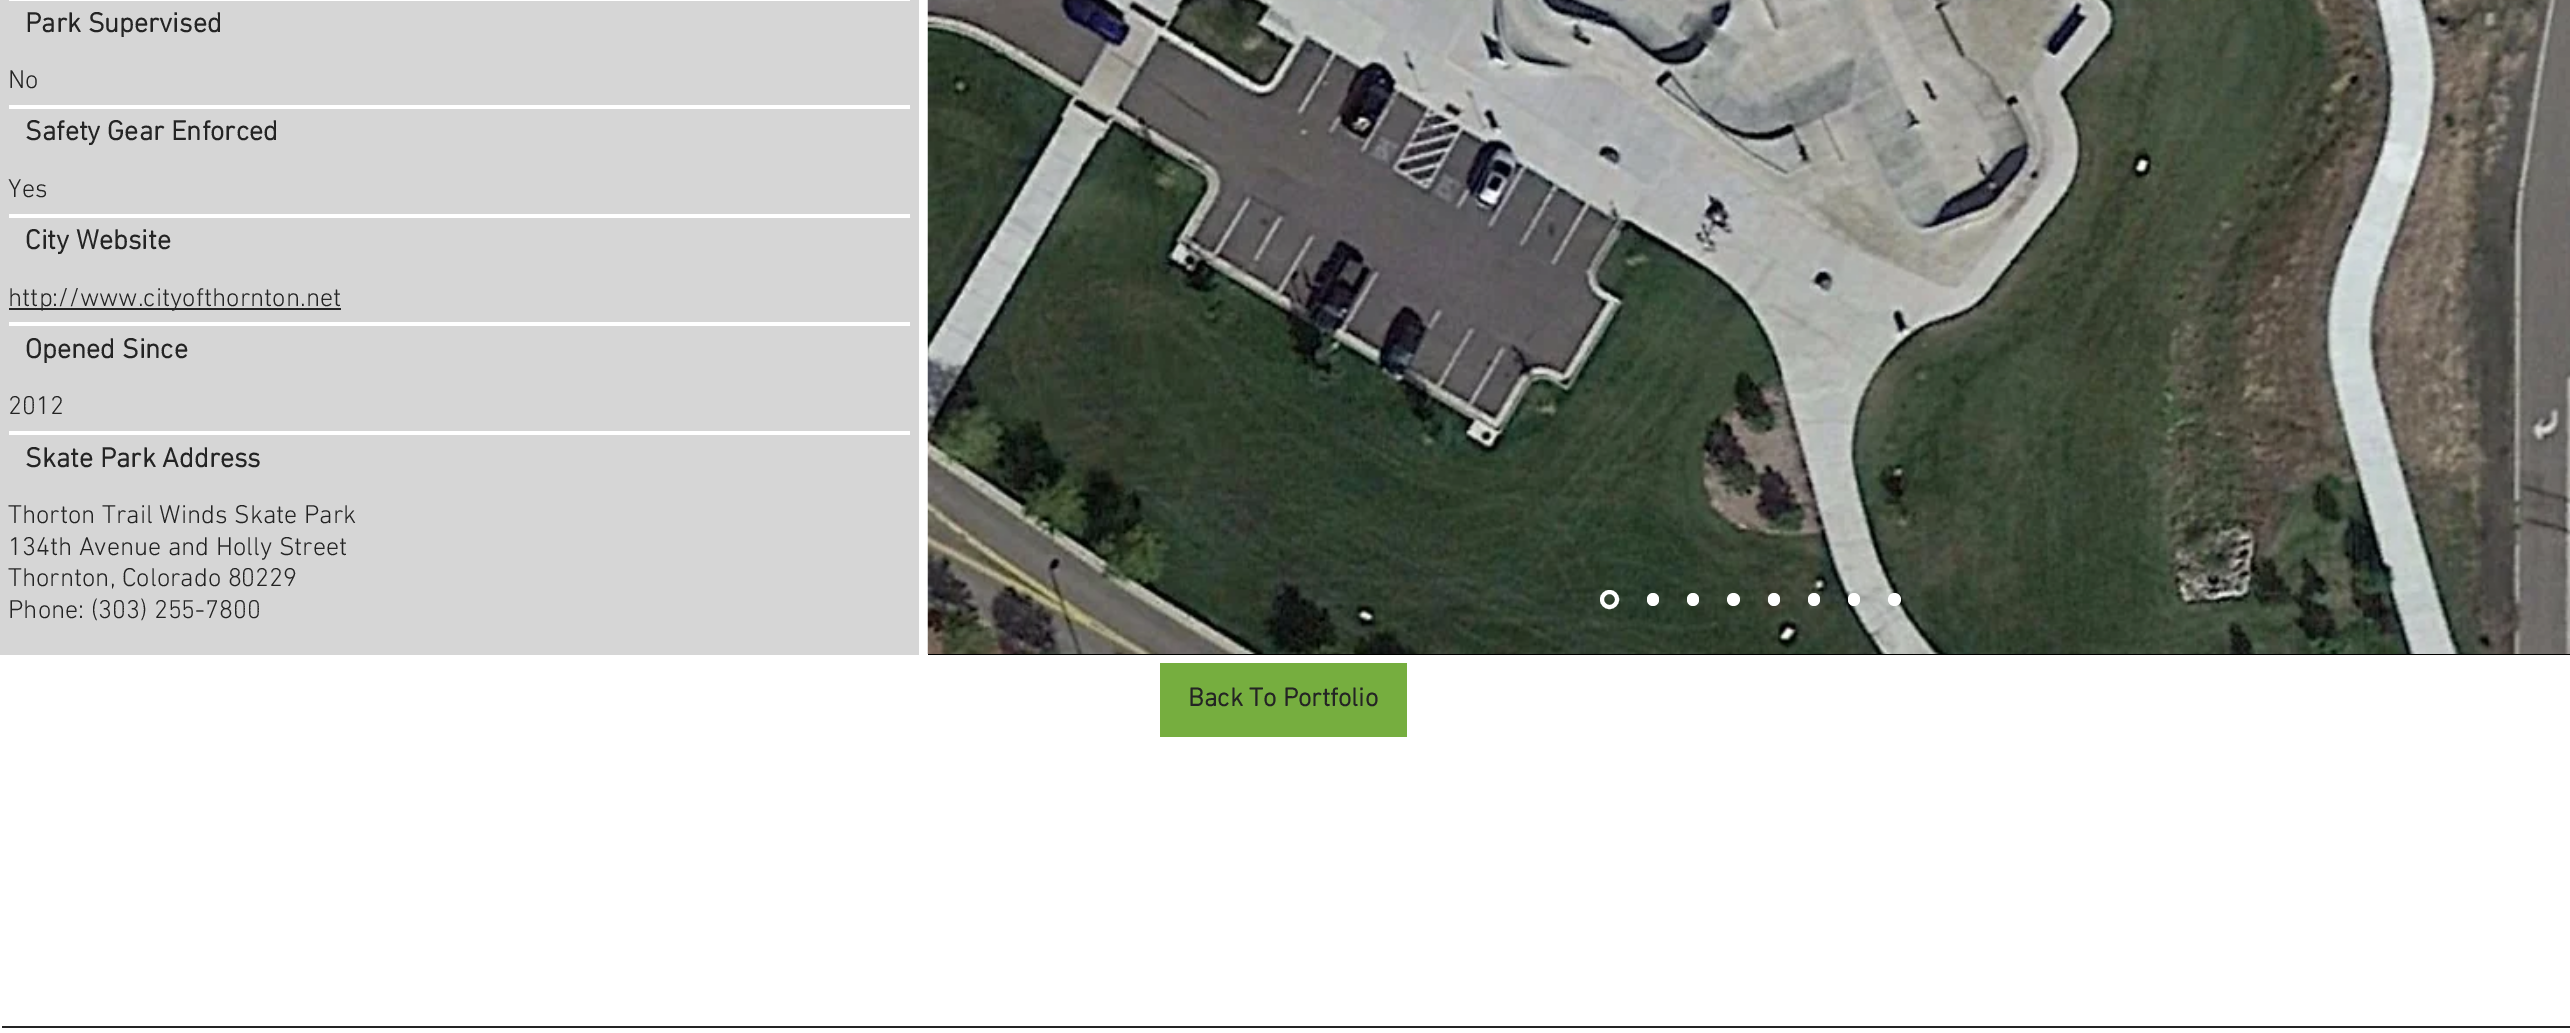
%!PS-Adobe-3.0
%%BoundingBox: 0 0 2570 1033
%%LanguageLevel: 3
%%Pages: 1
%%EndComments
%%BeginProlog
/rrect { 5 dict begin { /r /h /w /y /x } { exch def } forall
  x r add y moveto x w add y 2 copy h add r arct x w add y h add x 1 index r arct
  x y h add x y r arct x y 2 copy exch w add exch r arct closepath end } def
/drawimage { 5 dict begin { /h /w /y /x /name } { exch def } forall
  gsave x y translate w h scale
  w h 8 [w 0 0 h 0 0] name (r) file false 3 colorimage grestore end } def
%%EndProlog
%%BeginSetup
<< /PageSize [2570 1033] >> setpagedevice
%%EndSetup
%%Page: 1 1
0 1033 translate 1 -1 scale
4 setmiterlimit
1 setgray
0 0 2570 1033 rectfill
0.839 setgray
0 0 919 655 rectfill
1 setgray
9 0 901 1 rectfill
9 105 901 4 rectfill
9 214 901 4 rectfill
0.141 setgray
9 308 332 2 rectfill
1 setgray
9 322 901 4 rectfill
9 431 901 4 rectfill
(images/1.raw) 927 0 1643 654 drawimage
0 setgray
928 654 1642 1 rectfill
1 setgray
4 setlinewidth
newpath 1609.5 599.5 7.5 0 360 arc closepath stroke
1647 593 12 13 6 rrect fill
1687 593 12 13 6 rrect fill
newpath 1733.5 599.5 6.5 0 360 arc closepath fill
1768 593 12 13 6 rrect fill
1808 593 12 13 6 rrect fill
1848 593 12 13 6 rrect fill
newpath 1894.5 599.5 6.5 0 360 arc closepath fill
0.463 0.682 0.247 setrgbcolor
1160 663 247 74 rectfill
0.141 setgray
2 1026 2568 2 rectfill
/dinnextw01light-Bold [28 0 0 -28 0 0] selectfont
25 32 moveto (Park Supervised) show
/dinnextw01light-Light [26.25 0 0 -26.25 0 0] selectfont
8 88 moveto (No) show
/dinnextw01light-Bold [28 0 0 -28 0 0] selectfont
25 140 moveto (Safety Gear Enforced) show
/dinnextw01light-Light [26.25 0 0 -26.25 0 0] selectfont
8 197 moveto (Yes) show
/dinnextw01light-Bold [28 0 0 -28 0 0] selectfont
25 249 moveto (City Website) show
/dinnextw01light-Light [26.25 0 0 -26.25 0 0] selectfont
8 306 moveto (http://www.cityofthornton.net) show
/dinnextw01light-Bold [28 0 0 -28 0 0] selectfont
25 358 moveto (Opened Since) show
/dinnextw01light-Light [26.25 0 0 -26.25 0 0] selectfont
8 414 moveto (2012) show
/dinnextw01light-Bold [28 0 0 -28 0 0] selectfont
25 467 moveto (Skate Park Address) show
/dinnextw01light-Light [26.25 0 0 -26.25 0 0] selectfont
8 523 moveto (Thorton Trail Winds Skate Park) show
8 555 moveto (134th Avenue and Holly Street) show
8 586 moveto (Thornton, Colorado 80229) show
8 618 moveto (Phone: \(303\) 255-7800) show
/dinnextw01light-Bold [26.25 0 0 -26.25 0 0] selectfont
1188 706 moveto (Back To Portfolio) show
showpage
%%EOF
